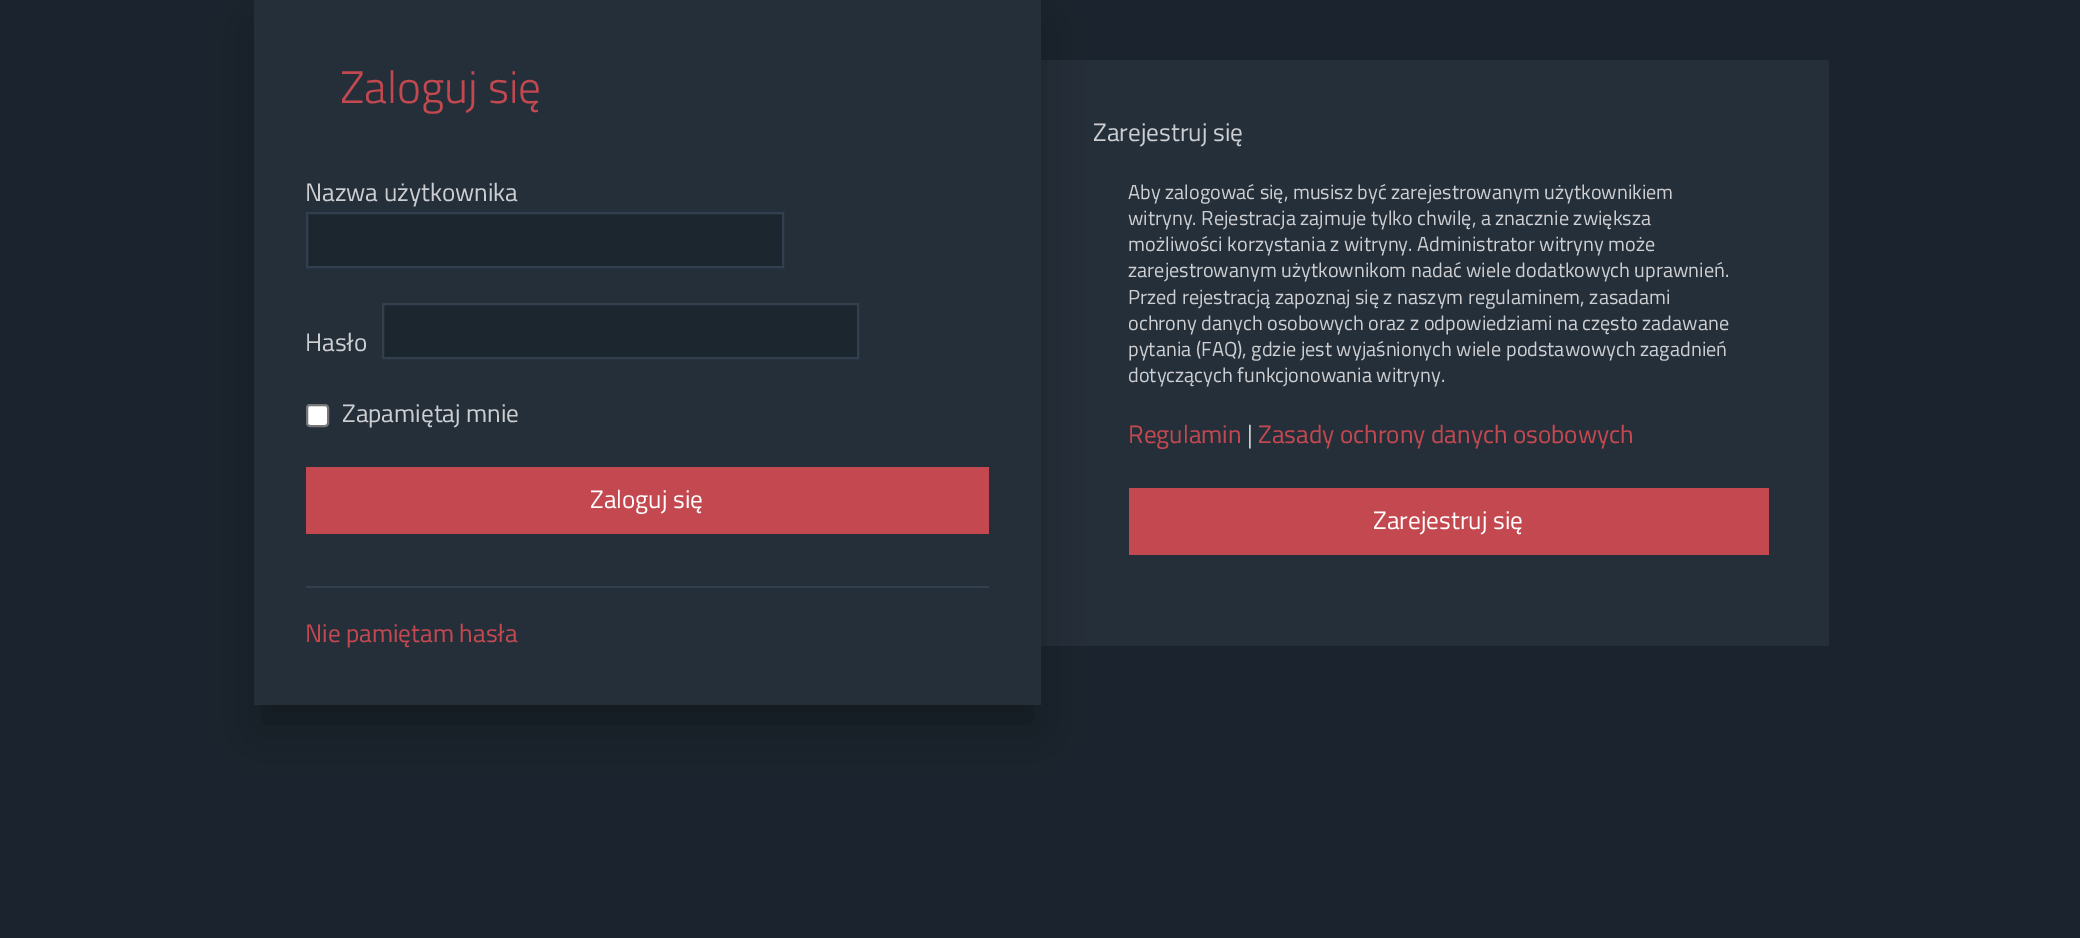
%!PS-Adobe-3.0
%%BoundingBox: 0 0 2080 938
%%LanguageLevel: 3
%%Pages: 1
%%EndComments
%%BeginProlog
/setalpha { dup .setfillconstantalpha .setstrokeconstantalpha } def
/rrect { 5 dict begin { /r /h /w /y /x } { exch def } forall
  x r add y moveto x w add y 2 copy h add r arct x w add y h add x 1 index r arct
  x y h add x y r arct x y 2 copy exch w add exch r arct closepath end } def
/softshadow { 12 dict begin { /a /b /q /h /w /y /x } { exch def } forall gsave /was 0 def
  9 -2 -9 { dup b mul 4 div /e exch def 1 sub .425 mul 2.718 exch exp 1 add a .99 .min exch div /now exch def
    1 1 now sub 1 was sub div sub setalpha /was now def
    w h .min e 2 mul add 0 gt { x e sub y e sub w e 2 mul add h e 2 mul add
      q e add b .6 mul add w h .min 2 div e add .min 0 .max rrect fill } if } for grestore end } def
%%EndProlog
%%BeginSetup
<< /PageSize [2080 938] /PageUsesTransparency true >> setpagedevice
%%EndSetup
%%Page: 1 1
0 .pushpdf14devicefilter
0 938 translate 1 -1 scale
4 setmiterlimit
0.106 0.141 0.18 setrgbcolor
0 0 2080 938 rectfill
0.145 0.184 0.224 setrgbcolor
1041 60 788 586 rectfill
0 setgray
254 26 787 706 0 26 0.27 softshadow
0.145 0.184 0.224 setrgbcolor
254 0 787 705 rectfill
0.11 0.149 0.184 setrgbcolor
newpath 307 213 moveto 783 213 lineto 783 267 lineto 307 267 lineto closepath gsave fill grestore
0.196 0.247 0.306 setrgbcolor
2 setlinewidth
stroke
0.11 0.149 0.184 setrgbcolor
newpath 383 304 moveto 858 304 lineto 858 358 lineto 383 358 lineto closepath gsave fill grestore
0.196 0.247 0.306 setrgbcolor
stroke
1 setgray
307 405 21 21 3 rrect gsave fill grestore
0.463 setgray
stroke
0.769 0.282 0.31 setrgbcolor
306 467 683 67 rectfill
0.196 0.247 0.306 setrgbcolor
306 586 683 2 rectfill
0.769 0.282 0.31 setrgbcolor
1129 488 640 67 rectfill
/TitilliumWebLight-Light [45.5 0 0 -45.5 0 0] selectfont
340 103 moveto (Zaloguj się) show
/TitilliumWeb-Regular [25.25 0 0 -25.25 0 0] selectfont
0.8 0.808 0.82 setrgbcolor
305 201 moveto (Nazwa użytkownika) show
305 351 moveto (Hasło) show
342 422 moveto (Zapamiętaj mnie) show
1 setgray
590 508 moveto (Zaloguj się) show
0.769 0.282 0.31 setrgbcolor
305 642 moveto (Nie pamiętam hasła) show
0.8 0.808 0.82 setrgbcolor
1093 141 moveto (Zarejestruj się) show
/TitilliumWeb-Regular [20.25 0 0 -20.25 0 0] selectfont
1128 199 moveto (Aby zalogować się, musisz być zarejestrowanym użytkownikiem) show
1128 225 moveto (witryny. Rejestracja zajmuje tylko chwilę, a znacznie zwiększa) show
1128 251 moveto (możliwości korzystania z witryny. Administrator witryny może) show
1128 277 moveto (zarejestrowanym użytkownikom nadać wiele dodatkowych uprawnień.) show
1128 304 moveto (Przed rejestracją zapoznaj się z naszym regulaminem, zasadami) show
1128 330 moveto (ochrony danych osobowych oraz z odpowiedziami na często zadawane) show
1128 356 moveto (pytania \(FAQ\), gdzie jest wyjaśnionych wiele podstawowych zagadnień) show
1128 382 moveto (dotyczących funkcjonowania witryny.) show
/TitilliumWeb-Regular [25.25 0 0 -25.25 0 0] selectfont
0.769 0.282 0.31 setrgbcolor
1128 443 moveto (Regulamin) show
0.8 0.808 0.82 setrgbcolor
1247 443 moveto (|) show
0.769 0.282 0.31 setrgbcolor
1258 443 moveto (Zasady ochrony danych osobowych) show
1 setgray
1373 529 moveto (Zarejestruj się) show
.poppdf14devicefilter showpage
%%EOF
